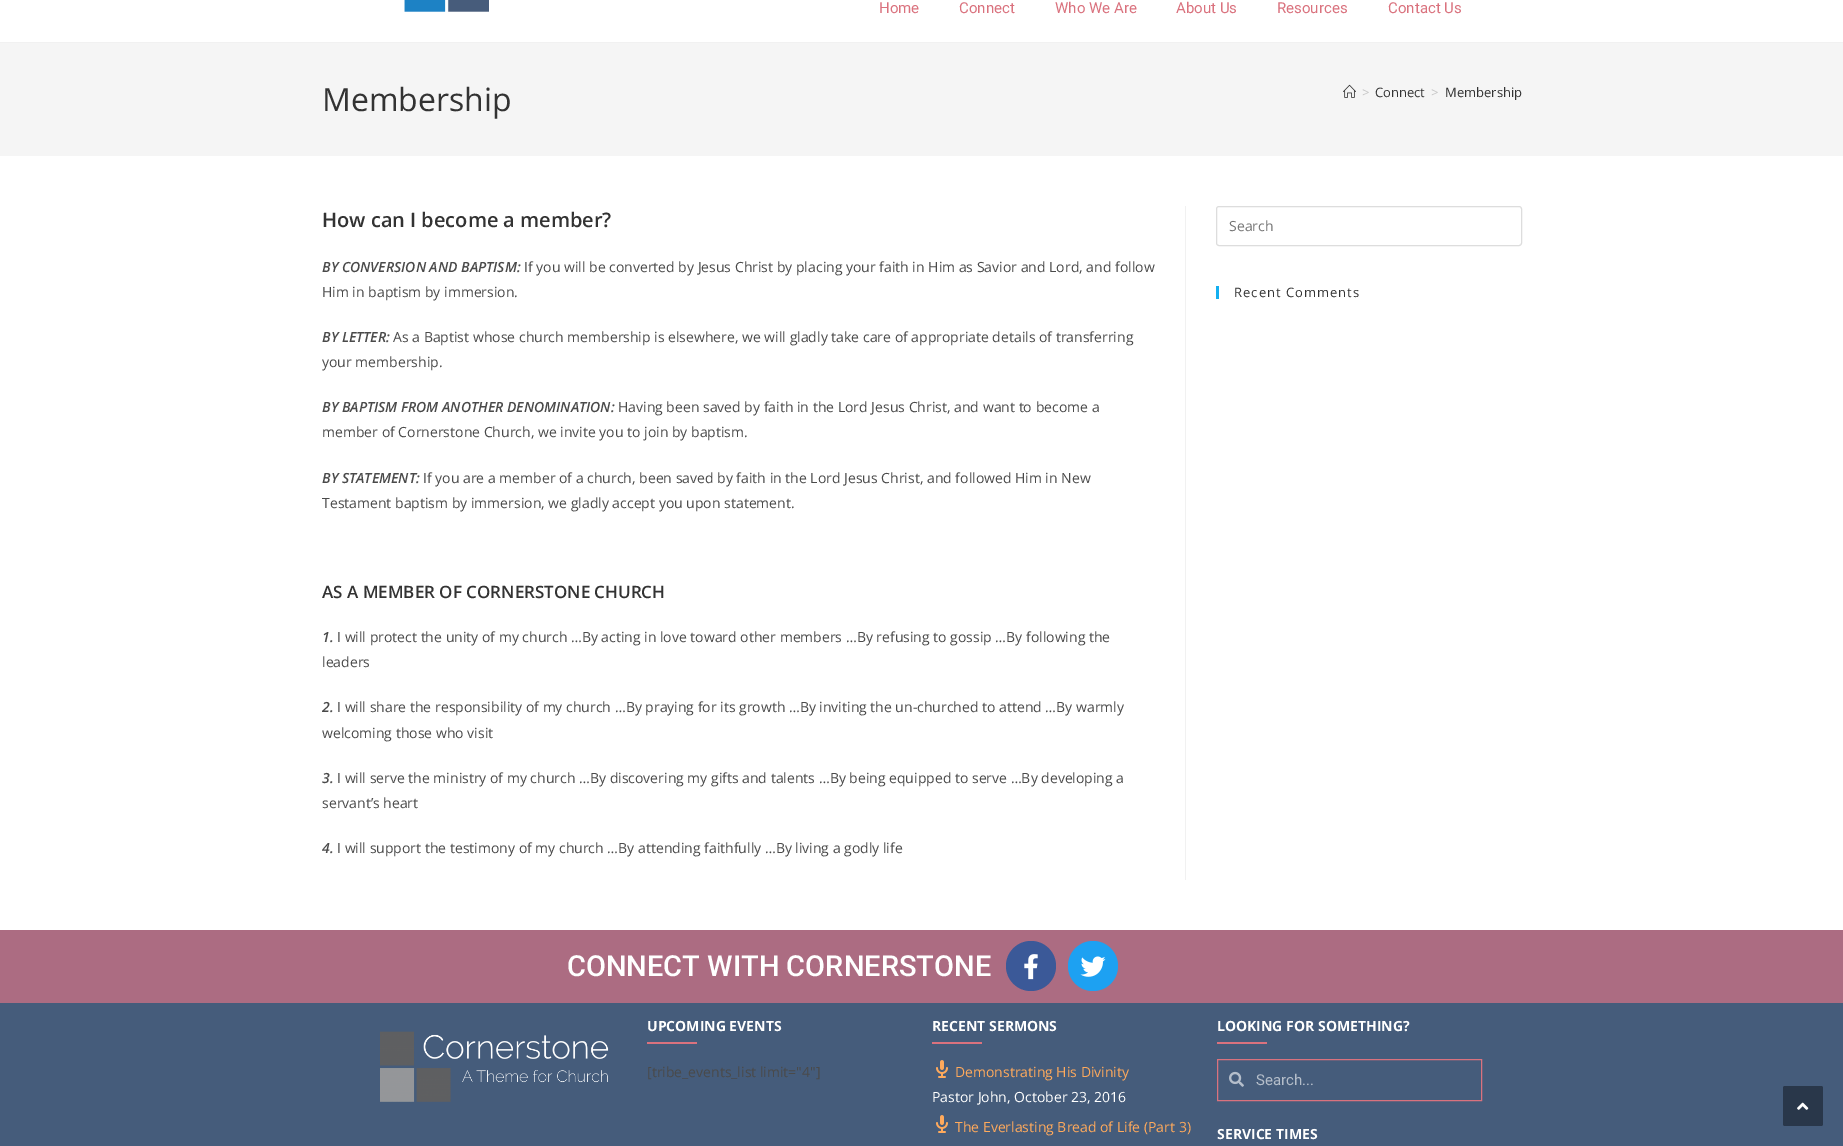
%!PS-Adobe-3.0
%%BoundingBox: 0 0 1843 1146
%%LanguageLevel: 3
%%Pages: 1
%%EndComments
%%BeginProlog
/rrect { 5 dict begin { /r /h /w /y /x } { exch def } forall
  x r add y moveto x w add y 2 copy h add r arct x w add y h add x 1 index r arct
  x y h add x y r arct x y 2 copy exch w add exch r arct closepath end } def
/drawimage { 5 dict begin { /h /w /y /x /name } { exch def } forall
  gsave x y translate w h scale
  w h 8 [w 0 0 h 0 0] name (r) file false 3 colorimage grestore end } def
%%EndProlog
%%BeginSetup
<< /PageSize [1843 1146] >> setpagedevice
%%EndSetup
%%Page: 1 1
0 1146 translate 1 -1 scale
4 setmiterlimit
1 setgray
0 0 1843 1146 rectfill
0.945 setgray
0 42 1843 1 rectfill
(images/1.raw) 404 0 85 12 drawimage
0.961 setgray
0 43 1843 113 rectfill
(images/2.raw) 1343 84 13 14 drawimage
0.945 setgray
1185 206 1 674 rectfill
0.867 setgray
1216.5 206.5 305 39 2.5 rrect stroke
0.075 0.686 0.941 setrgbcolor
1216 286 3 13 rectfill
0.675 0.424 0.51 setrgbcolor
0 930 1843 73 rectfill
0.231 0.349 0.596 setrgbcolor
newpath 1031 966 25 0 360 arc closepath fill
(images/3.raw) 1024 954 14 26 drawimage
0.114 0.631 0.949 setrgbcolor
newpath 1093 966 25 0 360 arc closepath fill
(images/4.raw) 1080 956 26 21 drawimage
0.271 0.361 0.482 setrgbcolor
0 1003 1843 143 rectfill
(images/5.raw) 380 1031 229 71 drawimage
0.855 0.447 0.494 setrgbcolor
647 1042 50 2 rectfill
932 1042 50 2 rectfill
(images/6.raw) 936 1060 12 18 drawimage
(images/6.raw) 936 1115 12 18 drawimage
1217 1042 50 2 rectfill
1217.5 1059.5 264 41 rectstroke
(images/7.raw) 1229 1071 15 16 drawimage
0.161 0.216 0.29 setrgbcolor
1783 1086 40 40 2 rrect fill
(images/8.raw) 1797 1102 12 8 drawimage
/Roboto-Regular [15 0 0 -15 0 0] selectfont
0.855 0.447 0.494 setrgbcolor
879 13 moveto (Home) show
959 13 moveto (Connect) show
1055 13 moveto (Who We Are) show
1176 13 moveto (About Us) show
1277 13 moveto (Resources) show
1388 13 moveto (Contact Us) show
/OpenSans-Regular [32 0 0 -32 0 0] selectfont
0.2 setgray
322 111 moveto (Membership) show
/OpenSans-Regular [13 0 0 -13 0 0] selectfont
0.776 setgray
1362 97 moveto (>) show
0.2 setgray
1375 97 moveto (Connect) show
0.776 setgray
1431 97 moveto (>) show
0.2 setgray
1445 97 moveto (Membership) show
/OpenSans-SemiBold [20 0 0 -20 0 0] selectfont
322 227 moveto (How can I become a member?) show
/OpenSans-SemiBoldItalic [14 0 0 -14 0 0] selectfont
0.29 setgray
322 272 moveto (BY CONVERSION AND BAPTISM:) show
/OpenSans-Regular [14 0 0 -14 0 0] selectfont
524 272 moveto (If you will be converted by Jesus Christ by placing your faith in Him as Savior and Lord, and follow) show
322 297 moveto (Him in baptism by immersion.) show
/OpenSans-SemiBoldItalic [14 0 0 -14 0 0] selectfont
322 342 moveto (BY LETTER:) show
/OpenSans-Regular [14 0 0 -14 0 0] selectfont
393 342 moveto (As a Baptist whose church membership is elsewhere, we will gladly take care of appropriate details of transferring) show
322 367 moveto (your membership.) show
/OpenSans-SemiBoldItalic [14 0 0 -14 0 0] selectfont
322 412 moveto (BY BAPTISM FROM ANOTHER DENOMINATION:) show
/OpenSans-Regular [14 0 0 -14 0 0] selectfont
618 412 moveto (Having been saved by faith in the Lord Jesus Christ, and want to become a) show
322 437 moveto (member of Cornerstone Church, we invite you to join by baptism.) show
/OpenSans-SemiBoldItalic [14 0 0 -14 0 0] selectfont
322 483 moveto (BY STATEMENT:) show
/OpenSans-Regular [14 0 0 -14 0 0] selectfont
423 483 moveto (If you are a member of a church, been saved by faith in the Lord Jesus Christ, and followed Him in New) show
322 508 moveto (Testament baptism by immersion, we gladly accept you upon statement.) show
/OpenSans-SemiBold [17 0 0 -17 0 0] selectfont
0.2 setgray
322 598 moveto (AS A MEMBER OF CORNERSTONE CHURCH) show
/OpenSans-SemiBoldItalic [14 0 0 -14 0 0] selectfont
0.29 setgray
322 642 moveto (1.) show
/OpenSans-Regular [14 0 0 -14 0 0] selectfont
337 642 moveto (I will protect the unity of my church …By acting in love toward other members …By refusing to gossip …By following the) show
322 667 moveto (leaders) show
/OpenSans-SemiBoldItalic [14 0 0 -14 0 0] selectfont
322 712 moveto (2.) show
/OpenSans-Regular [14 0 0 -14 0 0] selectfont
337 712 moveto (I will share the responsibility of my church …By praying for its growth …By inviting the un-churched to attend …By warmly) show
322 738 moveto (welcoming those who visit) show
/OpenSans-SemiBoldItalic [14 0 0 -14 0 0] selectfont
322 783 moveto (3.) show
/OpenSans-Regular [14 0 0 -14 0 0] selectfont
337 783 moveto (I will serve the ministry of my church …By discovering my gifts and talents …By being equipped to serve …By developing a) show
322 808 moveto (servant’s heart) show
/OpenSans-SemiBoldItalic [14 0 0 -14 0 0] selectfont
322 853 moveto (4.) show
/OpenSans-Regular [14 0 0 -14 0 0] selectfont
337 853 moveto (I will support the testimony of my church …By attending faithfully …By living a godly life) show
0.459 setgray
1229 231 moveto (Search) show
/OpenSans-Regular [13 0 0 -13 0 0] selectfont
0.2 setgray
1234 297 moveto 1 0 (Recent Comments) ashow
/Roboto-Medium [29 0 0 -29 0 0] selectfont
1 setgray
567 976 moveto (CONNECT WITH CORNERSTONE) show
/OpenSans-Bold [14 0 0 -14 0 0] selectfont
647 1031 moveto (UPCOMING EVENTS) show
/OpenSans-Regular [14 0 0 -14 0 0] selectfont
0.29 setgray
647 1077 moveto ([tribe_events_list limit="4"]) show
/OpenSans-Bold [14 0 0 -14 0 0] selectfont
1 setgray
932 1031 moveto (RECENT SERMONS) show
/OpenSans-Regular [14 0 0 -14 0 0] selectfont
1 0.667 0.361 setrgbcolor
955 1077 moveto (Demonstrating His Divinity) show
1 setgray
932 1102 moveto (Pastor John, October 23, 2016) show
1 0.667 0.361 setrgbcolor
955 1132 moveto (The Everlasting Bread of Life \(Part 3\)) show
/OpenSans-Bold [14 0 0 -14 0 0] selectfont
1 setgray
1217 1031 moveto (LOOKING FOR SOMETHING?) show
/Roboto-Regular [15 0 0 -15 0 0] selectfont
0.71 0.745 0.792 setrgbcolor
1256 1085 moveto (Search...) show
/OpenSans-Bold [14 0 0 -14 0 0] selectfont
1 setgray
1217 1139 moveto (SERVICE TIMES) show
showpage
%%EOF
